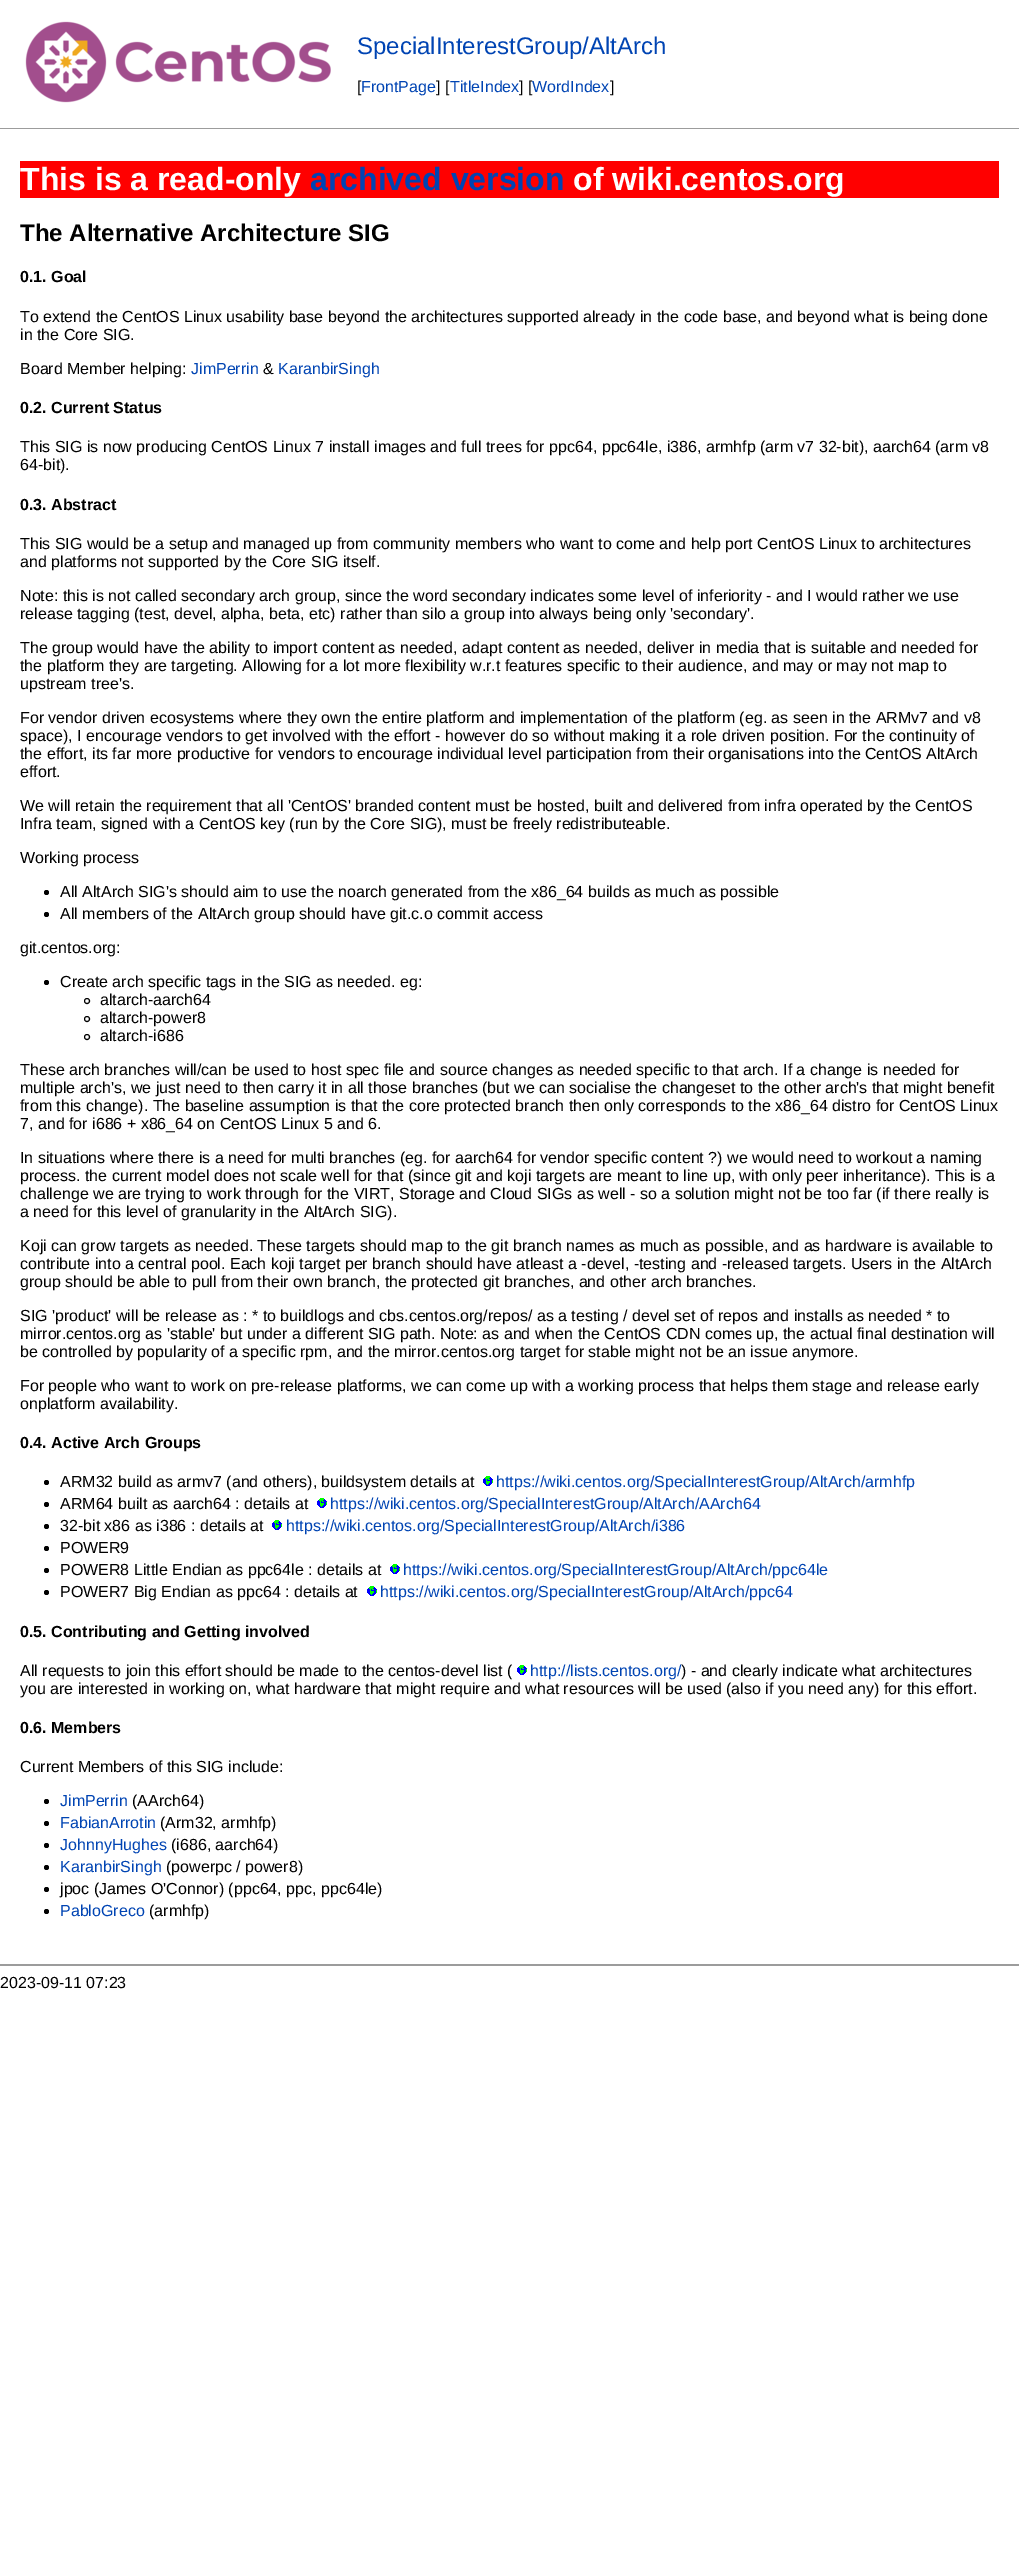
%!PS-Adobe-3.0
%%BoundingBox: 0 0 1019 2555
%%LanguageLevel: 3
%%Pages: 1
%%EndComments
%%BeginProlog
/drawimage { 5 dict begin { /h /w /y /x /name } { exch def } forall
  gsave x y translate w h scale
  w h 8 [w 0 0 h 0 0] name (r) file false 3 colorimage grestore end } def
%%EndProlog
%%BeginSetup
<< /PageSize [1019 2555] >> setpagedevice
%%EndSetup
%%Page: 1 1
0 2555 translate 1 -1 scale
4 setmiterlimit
1 setgray
0 0 1019 2555 rectfill
(images/1.raw) 25 21 306 82 drawimage
0.612 setgray
0 128 1019 1 rectfill
1 0 0 setrgbcolor
20 161 979 37 rectfill
0 setgray
newpath 46.5 892.5 2.5 0 360 arc closepath fill
newpath 46.5 914.5 2.5 0 360 arc closepath fill
newpath 46.5 982.5 2.5 0 360 arc closepath fill
newpath 87 1001 2.5 0 360 arc closepath stroke
newpath 87 1019 2.5 0 360 arc closepath stroke
newpath 87 1037 2.5 0 360 arc closepath stroke
newpath 46.5 1482.5 2.5 0 360 arc closepath fill
(images/2.raw) 483 1476 10 10 drawimage
newpath 46.5 1504.5 2.5 0 360 arc closepath fill
(images/2.raw) 317 1498 10 10 drawimage
newpath 46.5 1526.5 2.5 0 360 arc closepath fill
(images/2.raw) 272 1520 10 10 drawimage
newpath 46.5 1548.5 2.5 0 360 arc closepath fill
newpath 46.5 1570.5 2.5 0 360 arc closepath fill
(images/2.raw) 390 1564 10 10 drawimage
newpath 46.5 1592.5 2.5 0 360 arc closepath fill
(images/2.raw) 367 1586 10 10 drawimage
(images/2.raw) 517 1665 10 10 drawimage
newpath 46.5 1801.5 2.5 0 360 arc closepath fill
newpath 46.5 1823.5 2.5 0 360 arc closepath fill
newpath 46.5 1845.5 2.5 0 360 arc closepath fill
newpath 46.5 1867.5 2.5 0 360 arc closepath fill
newpath 46.5 1889.5 2.5 0 360 arc closepath fill
newpath 46.5 1911.5 2.5 0 360 arc closepath fill
0.612 setgray
0 1964 1019 2 rectfill
/LiberationSans-Regular [24 0 0 -24 0 0] selectfont
0 0.267 0.702 setrgbcolor
357 54 moveto (SpecialInterestGroup/AltArch) show
/LiberationSans-Regular [16 0 0 -16 0 0] selectfont
0 setgray
357 92 moveto ([) show
0 0.267 0.702 setrgbcolor
361 92 moveto (FrontPage) show
0 setgray
436 92 moveto (] [) show
0 0.267 0.702 setrgbcolor
450 92 moveto (TitleIndex) show
0 setgray
519 92 moveto (] [) show
0 0.267 0.702 setrgbcolor
532 92 moveto (WordIndex) show
0 setgray
610 92 moveto (]) show
/LiberationSans-Bold [32 0 0 -32 0 0] selectfont
1 setgray
20 190 moveto (This is a read-only) show
0 0.267 0.702 setrgbcolor
310 190 moveto (archived version) show
1 setgray
573 190 moveto (of wiki.centos.org) show
/LiberationSans-Bold [24 0 0 -24 0 0] selectfont
0 setgray
20 241 moveto (The Alternative Architecture SIG) show
/LiberationSans-Bold [16 0 0 -16 0 0] selectfont
20 282 moveto (0.1. Goal) show
/LiberationSans-Regular [16 0 0 -16 0 0] selectfont
20 322 moveto (To extend the CentOS Linux usability base beyond the architectures supported already in the code base, and beyond what is being done) show
20 340 moveto (in the Core SIG.) show
20 374 moveto (Board Member helping:) show
0 0.267 0.702 setrgbcolor
191 374 moveto (JimPerrin) show
0 setgray
263 374 moveto (&) show
0 0.267 0.702 setrgbcolor
278 374 moveto (KaranbirSingh) show
/LiberationSans-Bold [16 0 0 -16 0 0] selectfont
0 setgray
20 413 moveto (0.2. Current Status) show
/LiberationSans-Regular [16 0 0 -16 0 0] selectfont
20 452 moveto (This SIG is now producing CentOS Linux 7 install images and full trees for ppc64, ppc64le, i386, armhfp \(arm v7 32-bit\), aarch64 \(arm v8) show
20 470 moveto (64-bit\).) show
/LiberationSans-Bold [16 0 0 -16 0 0] selectfont
20 510 moveto (0.3. Abstract) show
/LiberationSans-Regular [16 0 0 -16 0 0] selectfont
20 549 moveto (This SIG would be a setup and managed up from community members who want to come and help port CentOS Linux to architectures) show
20 567 moveto (and platforms not supported by the Core SIG itself.) show
20 601 moveto (Note: this is not called secondary arch group, since the word secondary indicates some level of inferiority - and I would rather we use) show
20 619 moveto (release tagging \(test, devel, alpha, beta, etc\) rather than silo a group into always being only 'secondary'.) show
20 653 moveto (The group would have the ability to import content as needed, adapt content as needed, deliver in media that is suitable and needed for) show
20 671 moveto (the platform they are targeting. Allowing for a lot more flexibility w.r.t features specific to their audience, and may or may not map to) show
20 689 moveto (upstream tree's.) show
20 723 moveto (For vendor driven ecosystems where they own the entire platform and implementation of the platform \(eg. as seen in the ARMv7 and v8) show
20 741 moveto (space\), I encourage vendors to get involved with the effort - however do so without making it a role driven position. For the continuity of) show
20 759 moveto (the effort, its far more productive for vendors to encourage individual level participation from their organisations into the CentOS AltArch) show
20 777 moveto (effort.) show
20 811 moveto (We will retain the requirement that all 'CentOS' branded content must be hosted, built and delivered from infra operated by the CentOS) show
20 829 moveto (Infra team, signed with a CentOS key \(run by the Core SIG\), must be freely redistributeable.) show
20 863 moveto (Working process) show
60 897 moveto (All AltArch SIG's should aim to use the noarch generated from the x86_64 builds as much as possible) show
60 919 moveto (All members of the AltArch group should have git.c.o commit access) show
20 953 moveto (git.centos.org:) show
60 987 moveto (Create arch specific tags in the SIG as needed. eg:) show
100 1005 moveto (altarch-aarch64) show
100 1023 moveto (altarch-power8) show
100 1041 moveto (altarch-i686) show
20 1075 moveto (These arch branches will/can be used to host spec file and source changes as needed specific to that arch. If a change is needed for) show
20 1093 moveto (multiple arch's, we just need to then carry it in all those branches \(but we can socialise the changeset to the other arch's that might benefit) show
20 1111 moveto (from this change\). The baseline assumption is that the core protected branch then only corresponds to the x86_64 distro for CentOS Linux) show
20 1129 moveto (7, and for i686 + x86_64 on CentOS Linux 5 and 6.) show
20 1163 moveto (In situations where there is a need for multi branches \(eg. for aarch64 for vendor specific content ?\) we would need to workout a naming) show
20 1181 moveto (process. the current model does not scale well for that \(since git and koji targets are meant to line up, with only peer inheritance\). This is a) show
20 1199 moveto (challenge we are trying to work through for the VIRT, Storage and Cloud SIGs as well - so a solution might not be too far \(if there really is) show
20 1217 moveto (a need for this level of granularity in the AltArch SIG\).) show
20 1251 moveto (Koji can grow targets as needed. These targets should map to the git branch names as much as possible, and as hardware is available to) show
20 1269 moveto (contribute into a central pool. Each koji target per branch should have atleast a -devel, -testing and -released targets. Users in the AltArch) show
20 1287 moveto (group should be able to pull from their own branch, the protected git branches, and other arch branches.) show
20 1321 moveto (SIG 'product' will be release as : * to buildlogs and cbs.centos.org/repos/ as a testing / devel set of repos and installs as needed * to) show
20 1339 moveto (mirror.centos.org as 'stable' but under a different SIG path. Note: as and when the CentOS CDN comes up, the actual final destination will) show
20 1357 moveto (be controlled by popularity of a specific rpm, and the mirror.centos.org target for stable might not be an issue anymore.) show
20 1391 moveto (For people who want to work on pre-release platforms, we can come up with a working process that helps them stage and release early) show
20 1409 moveto (onplatform availability.) show
/LiberationSans-Bold [16 0 0 -16 0 0] selectfont
20 1448 moveto (0.4. Active Arch Groups) show
/LiberationSans-Regular [16 0 0 -16 0 0] selectfont
60 1487 moveto (ARM32 build as armv7 \(and others\), buildsystem details at) show
0 0.267 0.702 setrgbcolor
496 1487 moveto (https://wiki.centos.org/SpecialInterestGroup/AltArch/armhfp) show
0 setgray
60 1509 moveto (ARM64 built as aarch64 : details at) show
0 0.267 0.702 setrgbcolor
330 1509 moveto (https://wiki.centos.org/SpecialInterestGroup/AltArch/AArch64) show
0 setgray
60 1531 moveto (32-bit x86 as i386 : details at) show
0 0.267 0.702 setrgbcolor
286 1531 moveto (https://wiki.centos.org/SpecialInterestGroup/AltArch/i386) show
0 setgray
60 1553 moveto (POWER9) show
60 1575 moveto (POWER8 Little Endian as ppc64le : details at) show
0 0.267 0.702 setrgbcolor
403 1575 moveto (https://wiki.centos.org/SpecialInterestGroup/AltArch/ppc64le) show
0 setgray
60 1597 moveto (POWER7 Big Endian as ppc64 : details at) show
0 0.267 0.702 setrgbcolor
380 1597 moveto (https://wiki.centos.org/SpecialInterestGroup/AltArch/ppc64) show
/LiberationSans-Bold [16 0 0 -16 0 0] selectfont
0 setgray
20 1637 moveto (0.5. Contributing and Getting involved) show
/LiberationSans-Regular [16 0 0 -16 0 0] selectfont
20 1676 moveto (All requests to join this effort should be made to the centos-devel list \() show
0 0.267 0.702 setrgbcolor
530 1676 moveto (http://lists.centos.org/) show
0 setgray
681 1676 moveto (\) - and clearly indicate what architectures) show
20 1694 moveto (you are interested in working on, what hardware that might require and what resources will be used \(also if you need any\) for this effort.) show
/LiberationSans-Bold [16 0 0 -16 0 0] selectfont
20 1733 moveto (0.6. Members) show
/LiberationSans-Regular [16 0 0 -16 0 0] selectfont
20 1772 moveto (Current Members of this SIG include:) show
0 0.267 0.702 setrgbcolor
60 1806 moveto (JimPerrin) show
0 setgray
132 1806 moveto (\(AArch64\)) show
0 0.267 0.702 setrgbcolor
60 1828 moveto (FabianArrotin) show
0 setgray
160 1828 moveto (\(Arm32, armhfp\)) show
0 0.267 0.702 setrgbcolor
60 1850 moveto (JohnnyHughes) show
0 setgray
171 1850 moveto (\(i686, aarch64\)) show
0 0.267 0.702 setrgbcolor
60 1872 moveto (KaranbirSingh) show
0 setgray
166 1872 moveto (\(powerpc / power8\)) show
60 1894 moveto (jpoc \(James O'Connor\) \(ppc64, ppc, ppc64le\)) show
0 0.267 0.702 setrgbcolor
60 1916 moveto (PabloGreco) show
0 setgray
149 1916 moveto (\(armhfp\)) show
0 1988 moveto (2023-09-11 07:23) show
showpage
%%EOF
